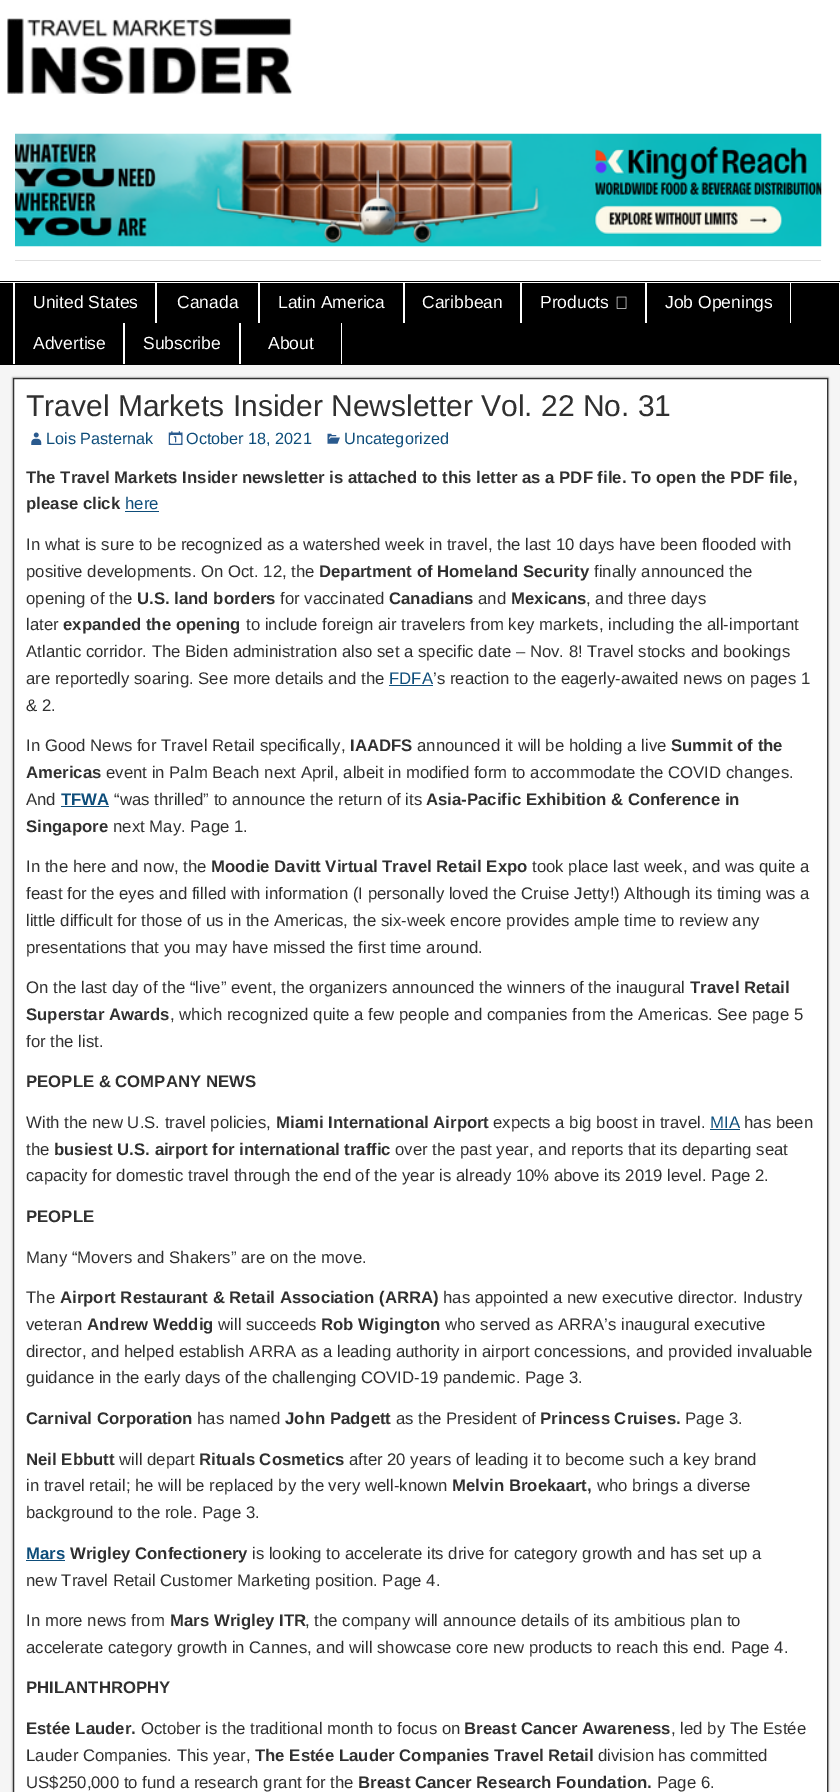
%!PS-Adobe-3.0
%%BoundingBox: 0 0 840 1792
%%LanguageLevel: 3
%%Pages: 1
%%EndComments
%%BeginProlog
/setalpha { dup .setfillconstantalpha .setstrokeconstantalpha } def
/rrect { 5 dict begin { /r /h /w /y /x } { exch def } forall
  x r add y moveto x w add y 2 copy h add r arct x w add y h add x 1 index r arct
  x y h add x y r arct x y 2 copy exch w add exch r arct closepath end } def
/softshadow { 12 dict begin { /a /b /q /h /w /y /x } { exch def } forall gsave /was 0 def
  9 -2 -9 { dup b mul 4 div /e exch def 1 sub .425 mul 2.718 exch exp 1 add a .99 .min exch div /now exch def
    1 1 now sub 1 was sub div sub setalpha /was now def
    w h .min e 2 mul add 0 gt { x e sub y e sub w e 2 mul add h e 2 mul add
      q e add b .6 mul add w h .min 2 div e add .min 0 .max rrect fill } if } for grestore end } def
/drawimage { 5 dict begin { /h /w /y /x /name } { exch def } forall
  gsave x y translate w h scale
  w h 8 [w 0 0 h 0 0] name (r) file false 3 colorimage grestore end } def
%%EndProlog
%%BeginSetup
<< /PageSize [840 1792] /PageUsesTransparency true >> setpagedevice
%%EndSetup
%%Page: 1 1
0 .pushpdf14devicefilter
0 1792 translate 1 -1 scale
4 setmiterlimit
1 setgray
0 0 840 1792 rectfill
0 setgray
0 281 840 1 rectfill
(images/1.raw) 7 18 285 76 drawimage
0.878 setgray
15 260 806 1 rectfill
(images/2.raw) 15 133 807 114 drawimage
0 setgray
0 283 840 82 rectfill
1 setgray
839 283 1 81 rectfill
13 283 1 81 rectfill
155 283 2 40 rectfill
14 283 1 81 rectfill
258 283 2 40 rectfill
403 283 2 40 rectfill
520 283 2 40 rectfill
645 283 2 40 rectfill
(images/3.raw) 616 296 11 13 drawimage
790 283 1 40 rectfill
123 323 2 41 rectfill
239 323 2 41 rectfill
341 323 1 41 rectfill
0.961 setgray
0 365 840 1427 rectfill
0.2 setgray
13 378 815 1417 0 1 1 softshadow
1 setgray
newpath 13.5 378.5 moveto 827.5 378.5 lineto 827.5 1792.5 lineto 13.5 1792.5 lineto closepath gsave fill grestore
0.2 setgray
stroke
(images/4.raw) 31 432 11 13 drawimage
(images/5.raw) 168 431 15 14 drawimage
(images/6.raw) 327 433 13 11 drawimage
0.055 0.302 0.478 setrgbcolor
125 511 34 1 rectfill
389 685 44 1 rectfill
61 806 48 1 rectfill
710 1129 30 1 rectfill
26 1560 39 1 rectfill
/LiberationSans-Regular [17.5 0 0 -17.5 0 0] selectfont
1 setgray
33 308 moveto (United States) show
177 308 moveto (Canada) show
278 308 moveto (Latin America) show
422 308 moveto (Caribbean) show
540 308 moveto (Products) show
665 308 moveto (Job Openings) show
33 349 moveto (Advertise) show
143 349 moveto (Subscribe) show
268 349 moveto (About) show
/LiberationSans-Regular [30 0 0 -30 0 0] selectfont
0.188 setgray
26 416 moveto (Travel Markets Insider Newsletter Vol. 22 No. 31) show
/LiberationSans-Regular [16.25 0 0 -16.25 0 0] selectfont
0.055 0.302 0.478 setrgbcolor
46 444 moveto (Lois Pasternak) show
186 444 moveto (October 18, 2021) show
344 444 moveto (Uncategorized) show
/LiberationSans-Bold [16.75 0 0 -16.75 0 0] selectfont
0.188 setgray
26 483 moveto (The Travel Markets Insider newsletter is attached to this letter as a PDF file. To open the PDF file,) show
26 509 moveto (please click) show
/LiberationSans-Regular [16.75 0 0 -16.75 0 0] selectfont
0.055 0.302 0.478 setrgbcolor
125 509 moveto (here) show
0.188 setgray
26 550 moveto (In what is sure to be recognized as a watershed week in travel, the last 10 days have been flooded with) show
26 577 moveto (positive developments. On Oct. 12, the) show
/LiberationSans-Bold [16.75 0 0 -16.75 0 0] selectfont
319 577 moveto (Department of Homeland Security) show
/LiberationSans-Regular [16.75 0 0 -16.75 0 0] selectfont
594 577 moveto (finally announced the) show
26 604 moveto (opening of the) show
/LiberationSans-Bold [16.75 0 0 -16.75 0 0] selectfont
137 604 moveto (U.S. land borders) show
/LiberationSans-Regular [16.75 0 0 -16.75 0 0] selectfont
280 604 moveto (for vaccinated) show
/LiberationSans-Bold [16.75 0 0 -16.75 0 0] selectfont
389 604 moveto (Canadians) show
/LiberationSans-Regular [16.75 0 0 -16.75 0 0] selectfont
478 604 moveto (and) show
/LiberationSans-Bold [16.75 0 0 -16.75 0 0] selectfont
511 604 moveto (Mexicans) show
/LiberationSans-Regular [16.75 0 0 -16.75 0 0] selectfont
586 604 moveto (, and three days) show
26 630 moveto (later) show
/LiberationSans-Bold [16.75 0 0 -16.75 0 0] selectfont
63 630 moveto (expanded the opening) show
/LiberationSans-Regular [16.75 0 0 -16.75 0 0] selectfont
246 630 moveto (to include foreign air travelers from key markets, including the all-important) show
26 657 moveto (Atlantic corridor. The Biden administration also set a specific date – Nov. 8! Travel stocks and bookings) show
26 684 moveto (are reportedly soaring. See more details and the) show
0.055 0.302 0.478 setrgbcolor
389 684 moveto (FDFA) show
0.188 setgray
433 684 moveto (’s reaction to the eagerly-awaited news on pages 1) show
26 711 moveto (& 2.) show
26 751 moveto (In Good News for Travel Retail specifically,) show
/LiberationSans-Bold [16.75 0 0 -16.75 0 0] selectfont
350 751 moveto (IAADFS) show
/LiberationSans-Regular [16.75 0 0 -16.75 0 0] selectfont
417 751 moveto (announced it will be holding a live) show
/LiberationSans-Bold [16.75 0 0 -16.75 0 0] selectfont
671 751 moveto (Summit of the) show
26 778 moveto (Americas) show
/LiberationSans-Regular [16.75 0 0 -16.75 0 0] selectfont
106 778 moveto (event in Palm Beach next April, albeit in modified form to accommodate the COVID changes.) show
26 805 moveto (And) show
/LiberationSans-Bold [16.75 0 0 -16.75 0 0] selectfont
0.055 0.302 0.478 setrgbcolor
61 805 moveto (TFWA) show
/LiberationSans-Regular [16.75 0 0 -16.75 0 0] selectfont
0.188 setgray
114 805 moveto (“was thrilled” to announce the return of its) show
/LiberationSans-Bold [16.75 0 0 -16.75 0 0] selectfont
426 805 moveto (Asia-Pacific Exhibition & Conference in) show
26 832 moveto (Singapore) show
/LiberationSans-Regular [16.75 0 0 -16.75 0 0] selectfont
113 832 moveto (next May. Page 1.) show
26 872 moveto (In the here and now, the) show
/LiberationSans-Bold [16.75 0 0 -16.75 0 0] selectfont
211 872 moveto (Moodie Davitt Virtual Travel Retail Expo) show
/LiberationSans-Regular [16.75 0 0 -16.75 0 0] selectfont
532 872 moveto (took place last week, and was quite a) show
26 899 moveto (feast for the eyes and filled with information \(I personally loved the Cruise Jetty!\) Although its timing was a) show
26 926 moveto (little difficult for those of us in the Americas, the six-week encore provides ample time to review any) show
26 953 moveto (presentations that you may have missed the first time around.) show
26 993 moveto (On the last day of the “live” event, the organizers announced the winners of the inaugural) show
/LiberationSans-Bold [16.75 0 0 -16.75 0 0] selectfont
690 993 moveto (Travel Retail) show
26 1020 moveto (Superstar Awards) show
/LiberationSans-Regular [16.75 0 0 -16.75 0 0] selectfont
170 1020 moveto (, which recognized quite a few people and companies from the Americas. See page 5) show
26 1047 moveto (for the list.) show
/LiberationSans-Bold [16.75 0 0 -16.75 0 0] selectfont
26 1087 moveto (PEOPLE & COMPANY NEWS) show
/LiberationSans-Regular [16.75 0 0 -16.75 0 0] selectfont
26 1128 moveto (With the new U.S. travel policies,) show
/LiberationSans-Bold [16.75 0 0 -16.75 0 0] selectfont
276 1128 moveto (Miami International Airport) show
/LiberationSans-Regular [16.75 0 0 -16.75 0 0] selectfont
493 1128 moveto (expects a big boost in travel.) show
0.055 0.302 0.478 setrgbcolor
710 1128 moveto (MIA) show
0.188 setgray
744 1128 moveto (has been) show
26 1155 moveto (the) show
/LiberationSans-Bold [16.75 0 0 -16.75 0 0] selectfont
54 1155 moveto (busiest U.S. airport for international traffic) show
/LiberationSans-Regular [16.75 0 0 -16.75 0 0] selectfont
395 1155 moveto (over the past year, and reports that its departing seat) show
26 1181 moveto (capacity for domestic travel through the end of the year is already 10% above its 2019 level. Page 2.) show
/LiberationSans-Bold [16.75 0 0 -16.75 0 0] selectfont
26 1222 moveto (PEOPLE) show
/LiberationSans-Regular [16.75 0 0 -16.75 0 0] selectfont
26 1263 moveto (Many “Movers and Shakers” are on the move.) show
26 1303 moveto (The) show
/LiberationSans-Bold [16.75 0 0 -16.75 0 0] selectfont
60 1303 moveto (Airport Restaurant & Retail Association \(ARRA\)) show
/LiberationSans-Regular [16.75 0 0 -16.75 0 0] selectfont
443 1303 moveto (has appointed a new executive director. Industry) show
26 1330 moveto (veteran) show
/LiberationSans-Bold [16.75 0 0 -16.75 0 0] selectfont
87 1330 moveto (Andrew Weddig) show
/LiberationSans-Regular [16.75 0 0 -16.75 0 0] selectfont
218 1330 moveto (will succeeds) show
/LiberationSans-Bold [16.75 0 0 -16.75 0 0] selectfont
321 1330 moveto (Rob Wigington) show
/LiberationSans-Regular [16.75 0 0 -16.75 0 0] selectfont
445 1330 moveto (who served as ARRA’s inaugural executive) show
26 1357 moveto (director, and helped establish ARRA as a leading authority in airport concessions, and provided invaluable) show
26 1383 moveto (guidance in the early days of the challenging COVID-19 pandemic. Page 3.) show
/LiberationSans-Bold [16.75 0 0 -16.75 0 0] selectfont
26 1424 moveto (Carnival Corporation) show
/LiberationSans-Regular [16.75 0 0 -16.75 0 0] selectfont
197 1424 moveto (has named) show
/LiberationSans-Bold [16.75 0 0 -16.75 0 0] selectfont
285 1424 moveto (John Padgett) show
/LiberationSans-Regular [16.75 0 0 -16.75 0 0] selectfont
396 1424 moveto (as the President of) show
/LiberationSans-Bold [16.75 0 0 -16.75 0 0] selectfont
540 1424 moveto (Princess Cruises.) show
/LiberationSans-Regular [16.75 0 0 -16.75 0 0] selectfont
685 1424 moveto (Page 3.) show
/LiberationSans-Bold [16.75 0 0 -16.75 0 0] selectfont
26 1465 moveto (Neil Ebbutt) show
/LiberationSans-Regular [16.75 0 0 -16.75 0 0] selectfont
119 1465 moveto (will depart) show
/LiberationSans-Bold [16.75 0 0 -16.75 0 0] selectfont
199 1465 moveto (Rituals Cosmetics) show
/LiberationSans-Regular [16.75 0 0 -16.75 0 0] selectfont
349 1465 moveto (after 20 years of leading it to become such a key brand) show
26 1491 moveto (in travel retail; he will be replaced by the very well-known) show
/LiberationSans-Bold [16.75 0 0 -16.75 0 0] selectfont
452 1491 moveto (Melvin Broekaart,) show
/LiberationSans-Regular [16.75 0 0 -16.75 0 0] selectfont
597 1491 moveto (who brings a diverse) show
26 1518 moveto (background to the role. Page 3.) show
/LiberationSans-Bold [16.75 0 0 -16.75 0 0] selectfont
0.055 0.302 0.478 setrgbcolor
26 1559 moveto (Mars) show
0.188 setgray
70 1559 moveto (Wrigley Confectionery) show
/LiberationSans-Regular [16.75 0 0 -16.75 0 0] selectfont
252 1559 moveto (is looking to accelerate its drive for category growth and has set up a) show
26 1586 moveto (new Travel Retail Customer Marketing position. Page 4.) show
26 1626 moveto (In more news from) show
/LiberationSans-Bold [16.75 0 0 -16.75 0 0] selectfont
170 1626 moveto (Mars Wrigley ITR) show
/LiberationSans-Regular [16.75 0 0 -16.75 0 0] selectfont
305 1626 moveto (, the company will announce details of its ambitious plan to) show
26 1653 moveto (accelerate category growth in Cannes, and will showcase core new products to reach this end. Page 4.) show
/LiberationSans-Bold [16.75 0 0 -16.75 0 0] selectfont
26 1693 moveto (PHILANTHROPHY) show
26 1734 moveto (Estée Lauder.) show
/LiberationSans-Regular [16.75 0 0 -16.75 0 0] selectfont
141 1734 moveto (October is the traditional month to focus on) show
/LiberationSans-Bold [16.75 0 0 -16.75 0 0] selectfont
464 1734 moveto (Breast Cancer Awareness) show
/LiberationSans-Regular [16.75 0 0 -16.75 0 0] selectfont
671 1734 moveto (, led by The Estée) show
26 1761 moveto (Lauder Companies. This year,) show
/LiberationSans-Bold [16.75 0 0 -16.75 0 0] selectfont
255 1761 moveto (The Estée Lauder Companies Travel Retail) show
/LiberationSans-Regular [16.75 0 0 -16.75 0 0] selectfont
598 1761 moveto (division has committed) show
26 1788 moveto (US$250,000 to fund a research grant for the) show
/LiberationSans-Bold [16.75 0 0 -16.75 0 0] selectfont
358 1788 moveto (Breast Cancer Research Foundation.) show
/LiberationSans-Regular [16.75 0 0 -16.75 0 0] selectfont
657 1788 moveto (Page 6.) show
.poppdf14devicefilter showpage
%%EOF
